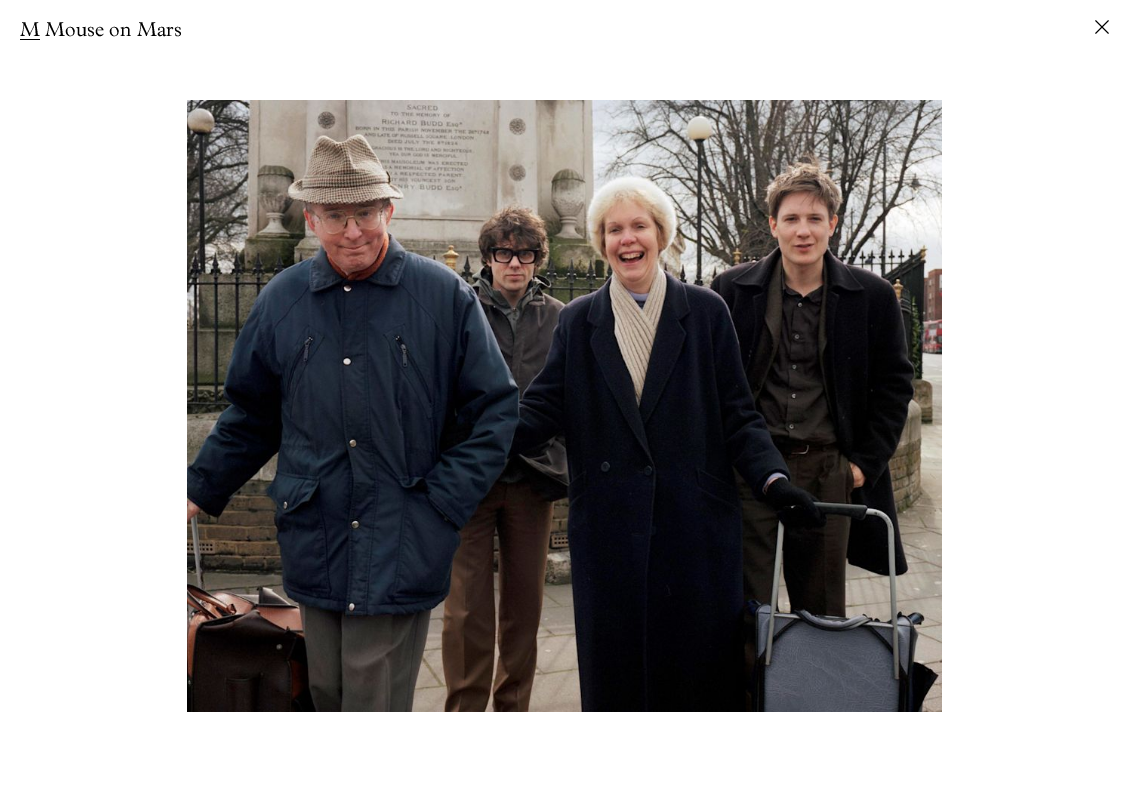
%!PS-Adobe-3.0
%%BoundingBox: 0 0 1129 812
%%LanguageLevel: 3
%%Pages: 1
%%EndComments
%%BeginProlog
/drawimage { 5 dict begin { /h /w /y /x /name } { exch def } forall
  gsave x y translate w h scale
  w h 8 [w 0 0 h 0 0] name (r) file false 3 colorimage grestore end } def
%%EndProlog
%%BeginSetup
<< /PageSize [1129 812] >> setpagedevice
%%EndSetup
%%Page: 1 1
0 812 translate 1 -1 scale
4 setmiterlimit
1 setgray
0 0 1129 812 rectfill
0 setgray
20 39 20 1 rectfill
newpath 1095.5 20.5 moveto 1108.5 33.5 lineto 1108.5 20.5 moveto 1095.5 33.5 lineto stroke
(images/1.raw) 187 100 755 612 drawimage
/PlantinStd-Light [20 0 0 -20 0 0] selectfont
20 36 moveto (M) show
45 36 moveto (Mouse on Mars) show
showpage
%%EOF
